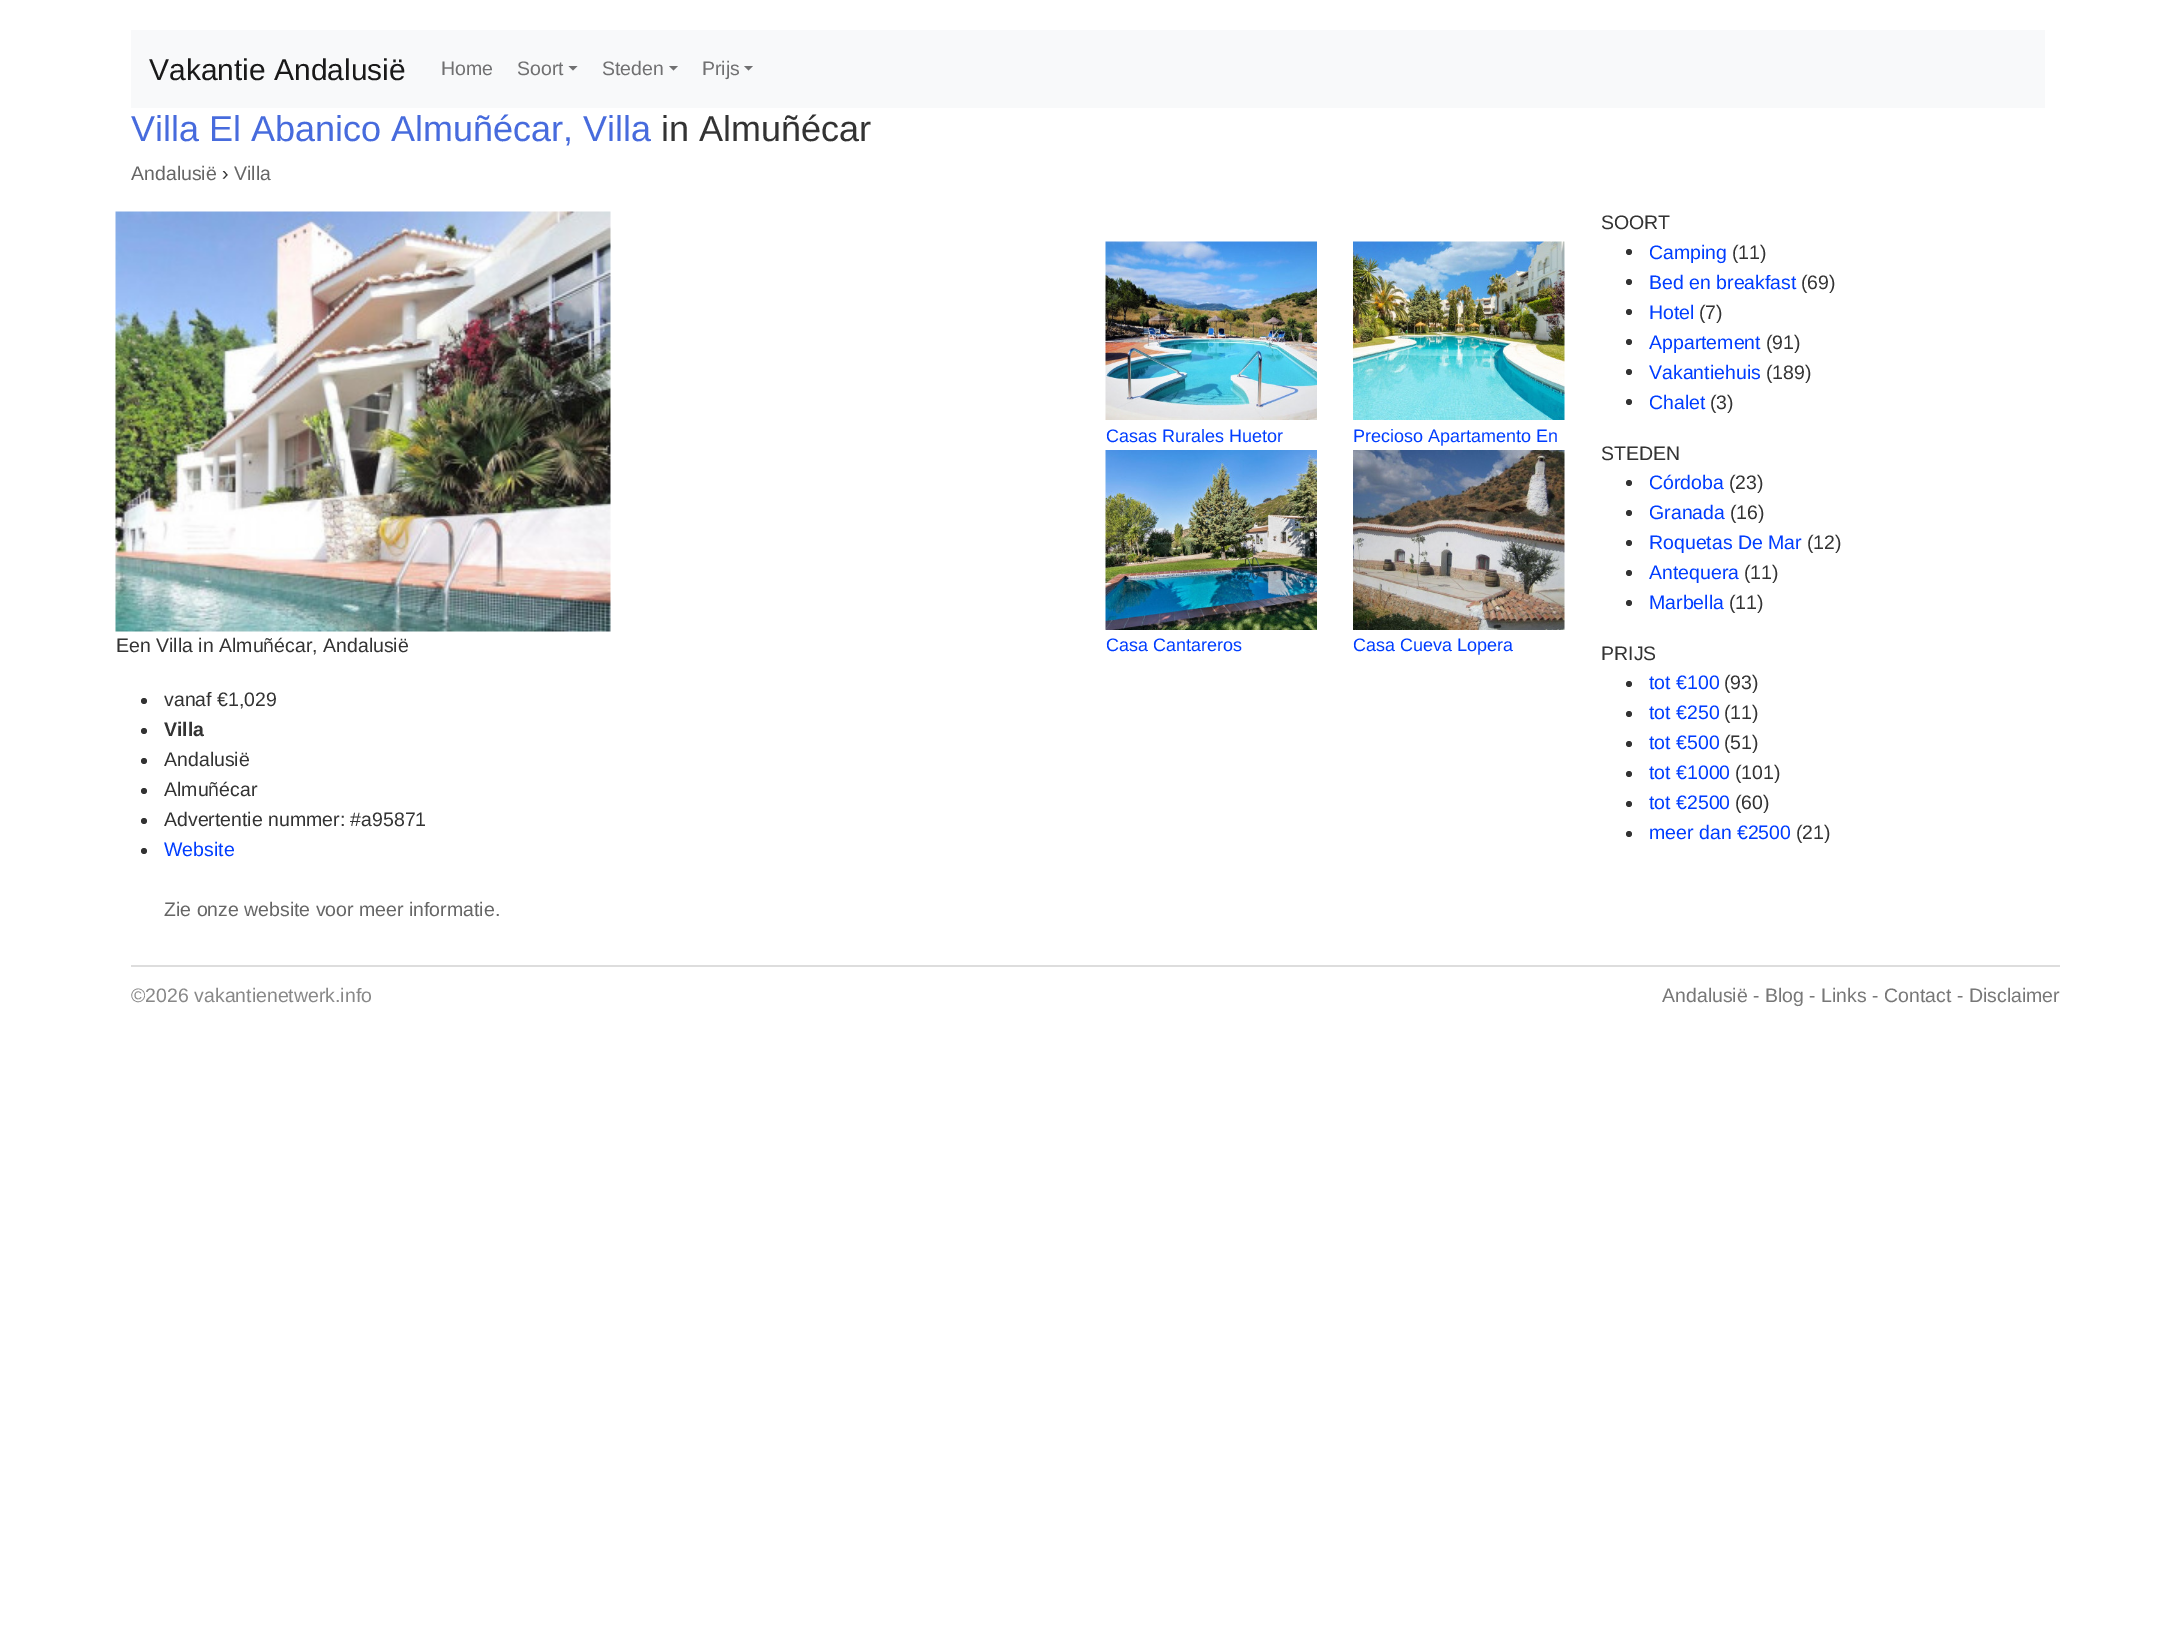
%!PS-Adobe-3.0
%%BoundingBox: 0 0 2174 1650
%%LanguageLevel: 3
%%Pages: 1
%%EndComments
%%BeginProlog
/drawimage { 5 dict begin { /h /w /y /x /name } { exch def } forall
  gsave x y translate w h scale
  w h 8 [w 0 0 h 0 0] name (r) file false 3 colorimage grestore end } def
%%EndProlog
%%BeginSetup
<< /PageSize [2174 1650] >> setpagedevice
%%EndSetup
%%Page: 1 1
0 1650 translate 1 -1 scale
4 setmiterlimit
1 setgray
0 0 2174 1650 rectfill
0.973 0.976 0.98 setrgbcolor
131 30 1914 78 rectfill
0.439 0.439 0.443 setrgbcolor
newpath 568.5 66 moveto 577.5 66 lineto 573 70.5 lineto closepath fill
newpath 669 66 moveto 678 66 lineto 673.5 70.5 lineto closepath fill
newpath 744 66 moveto 753 66 lineto 748.5 70.5 lineto closepath fill
(images/1.raw) 1105 241 212 179 drawimage
(images/2.raw) 1353 241 212 179 drawimage
(images/3.raw) 1105 450 212 180 drawimage
(images/4.raw) 1353 450 212 180 drawimage
(images/5.raw) 115 211 496 421 drawimage
0.2 setgray
newpath 144 701 3 0 360 arc closepath fill
newpath 144 731 3 0 360 arc closepath fill
newpath 144 761 3 0 360 arc closepath fill
newpath 144 791 3 0 360 arc closepath fill
newpath 144 821 3 0 360 arc closepath fill
newpath 144 851 3 0 360 arc closepath fill
newpath 1629 252 3 0 360 arc closepath fill
newpath 1629 282 3 0 360 arc closepath fill
newpath 1629 312 3 0 360 arc closepath fill
newpath 1629 342 3 0 360 arc closepath fill
newpath 1629 372 3 0 360 arc closepath fill
newpath 1629 402 3 0 360 arc closepath fill
newpath 1629 483 3 0 360 arc closepath fill
newpath 1629 513 3 0 360 arc closepath fill
newpath 1629 543 3 0 360 arc closepath fill
newpath 1629 573 3 0 360 arc closepath fill
newpath 1629 603 3 0 360 arc closepath fill
newpath 1629 684 3 0 360 arc closepath fill
newpath 1629 714 3 0 360 arc closepath fill
newpath 1629 744 3 0 360 arc closepath fill
newpath 1629 774 3 0 360 arc closepath fill
newpath 1629 804 3 0 360 arc closepath fill
newpath 1629 834 3 0 360 arc closepath fill
0.867 setgray
131 965 1929 2 rectfill
/LiberationSans-Regular [30 0 0 -30 0 0] selectfont
0.098 setgray
149 80 moveto (Vakantie Andalusië) show
/LiberationSans-Regular [19.5 0 0 -19.5 0 0] selectfont
0.439 0.439 0.443 setrgbcolor
441 75 moveto (Home) show
517 75 moveto (Soort) show
602 75 moveto (Steden) show
702 75 moveto (Prijs) show
/LiberationSans-Regular [36 0 0 -36 0 0] selectfont
0.278 0.42 0.867 setrgbcolor
131 141 moveto (Villa El Abanico Almuñécar, Villa) show
0.2 setgray
661 141 moveto (in Almuñécar) show
/LiberationSans-Regular [19.5 0 0 -19.5 0 0] selectfont
0.4 setgray
131 180 moveto (Andalusië) show
0.2 setgray
222 180 moveto (›) show
0.4 setgray
234 180 moveto (Villa) show
/LiberationSans-Regular [18 0 0 -18 0 0] selectfont
0 0.239 1 setrgbcolor
1106 442 moveto (Casas Rurales Huetor) show
1353 442 moveto (Precioso Apartamento En) show
1106 651 moveto (Casa Cantareros) show
1353 651 moveto (Casa Cueva Lopera) show
/LiberationSans-Regular [19.5 0 0 -19.5 0 0] selectfont
0.2 setgray
116 652 moveto (Een Villa in Almuñécar, Andalusië) show
164 706 moveto (vanaf €1,029) show
/LiberationSans-Bold [19.5 0 0 -19.5 0 0] selectfont
164 736 moveto (Villa) show
/LiberationSans-Regular [19.5 0 0 -19.5 0 0] selectfont
164 766 moveto (Andalusië) show
164 796 moveto (Almuñécar) show
164 826 moveto (Advertentie nummer: #a95871) show
0 0.239 1 setrgbcolor
164 856 moveto (Website) show
0.4 setgray
164 916 moveto (Zie onze website voor meer informatie.) show
0.2 setgray
1601 229 moveto (SOORT) show
0 0.239 1 setrgbcolor
1649 259 moveto (Camping) show
0.2 setgray
1732 259 moveto (\(11\)) show
0 0.239 1 setrgbcolor
1649 289 moveto (Bed en breakfast) show
0.2 setgray
1801 289 moveto (\(69\)) show
0 0.239 1 setrgbcolor
1649 319 moveto (Hotel) show
0.2 setgray
1699 319 moveto (\(7\)) show
0 0.239 1 setrgbcolor
1649 349 moveto (Appartement) show
0.2 setgray
1766 349 moveto (\(91\)) show
0 0.239 1 setrgbcolor
1649 379 moveto (Vakantiehuis) show
0.2 setgray
1766 379 moveto (\(189\)) show
0 0.239 1 setrgbcolor
1649 409 moveto (Chalet) show
0.2 setgray
1710 409 moveto (\(3\)) show
1601 460 moveto (STEDEN) show
0 0.239 1 setrgbcolor
1649 489 moveto (Córdoba) show
0.2 setgray
1729 489 moveto (\(23\)) show
0 0.239 1 setrgbcolor
1649 519 moveto (Granada) show
0.2 setgray
1730 519 moveto (\(16\)) show
0 0.239 1 setrgbcolor
1649 549 moveto (Roquetas De Mar) show
0.2 setgray
1807 549 moveto (\(12\)) show
0 0.239 1 setrgbcolor
1649 579 moveto (Antequera) show
0.2 setgray
1744 579 moveto (\(11\)) show
0 0.239 1 setrgbcolor
1649 609 moveto (Marbella) show
0.2 setgray
1729 609 moveto (\(11\)) show
1601 660 moveto (PRIJS) show
0 0.239 1 setrgbcolor
1649 689 moveto (tot €100) show
0.2 setgray
1724 689 moveto (\(93\)) show
0 0.239 1 setrgbcolor
1649 719 moveto (tot €250) show
0.2 setgray
1724 719 moveto (\(11\)) show
0 0.239 1 setrgbcolor
1649 749 moveto (tot €500) show
0.2 setgray
1724 749 moveto (\(51\)) show
0 0.239 1 setrgbcolor
1649 779 moveto (tot €1000) show
0.2 setgray
1735 779 moveto (\(101\)) show
0 0.239 1 setrgbcolor
1649 809 moveto (tot €2500) show
0.2 setgray
1735 809 moveto (\(60\)) show
0 0.239 1 setrgbcolor
1649 839 moveto (meer dan €2500) show
0.2 setgray
1796 839 moveto (\(21\)) show
0.533 setgray
131 1002 moveto (©2026 vakantienetwerk.info) show
0.467 setgray
1662 1002 moveto (Andalusië - Blog - Links - Contact - Disclaimer) show
showpage
%%EOF
